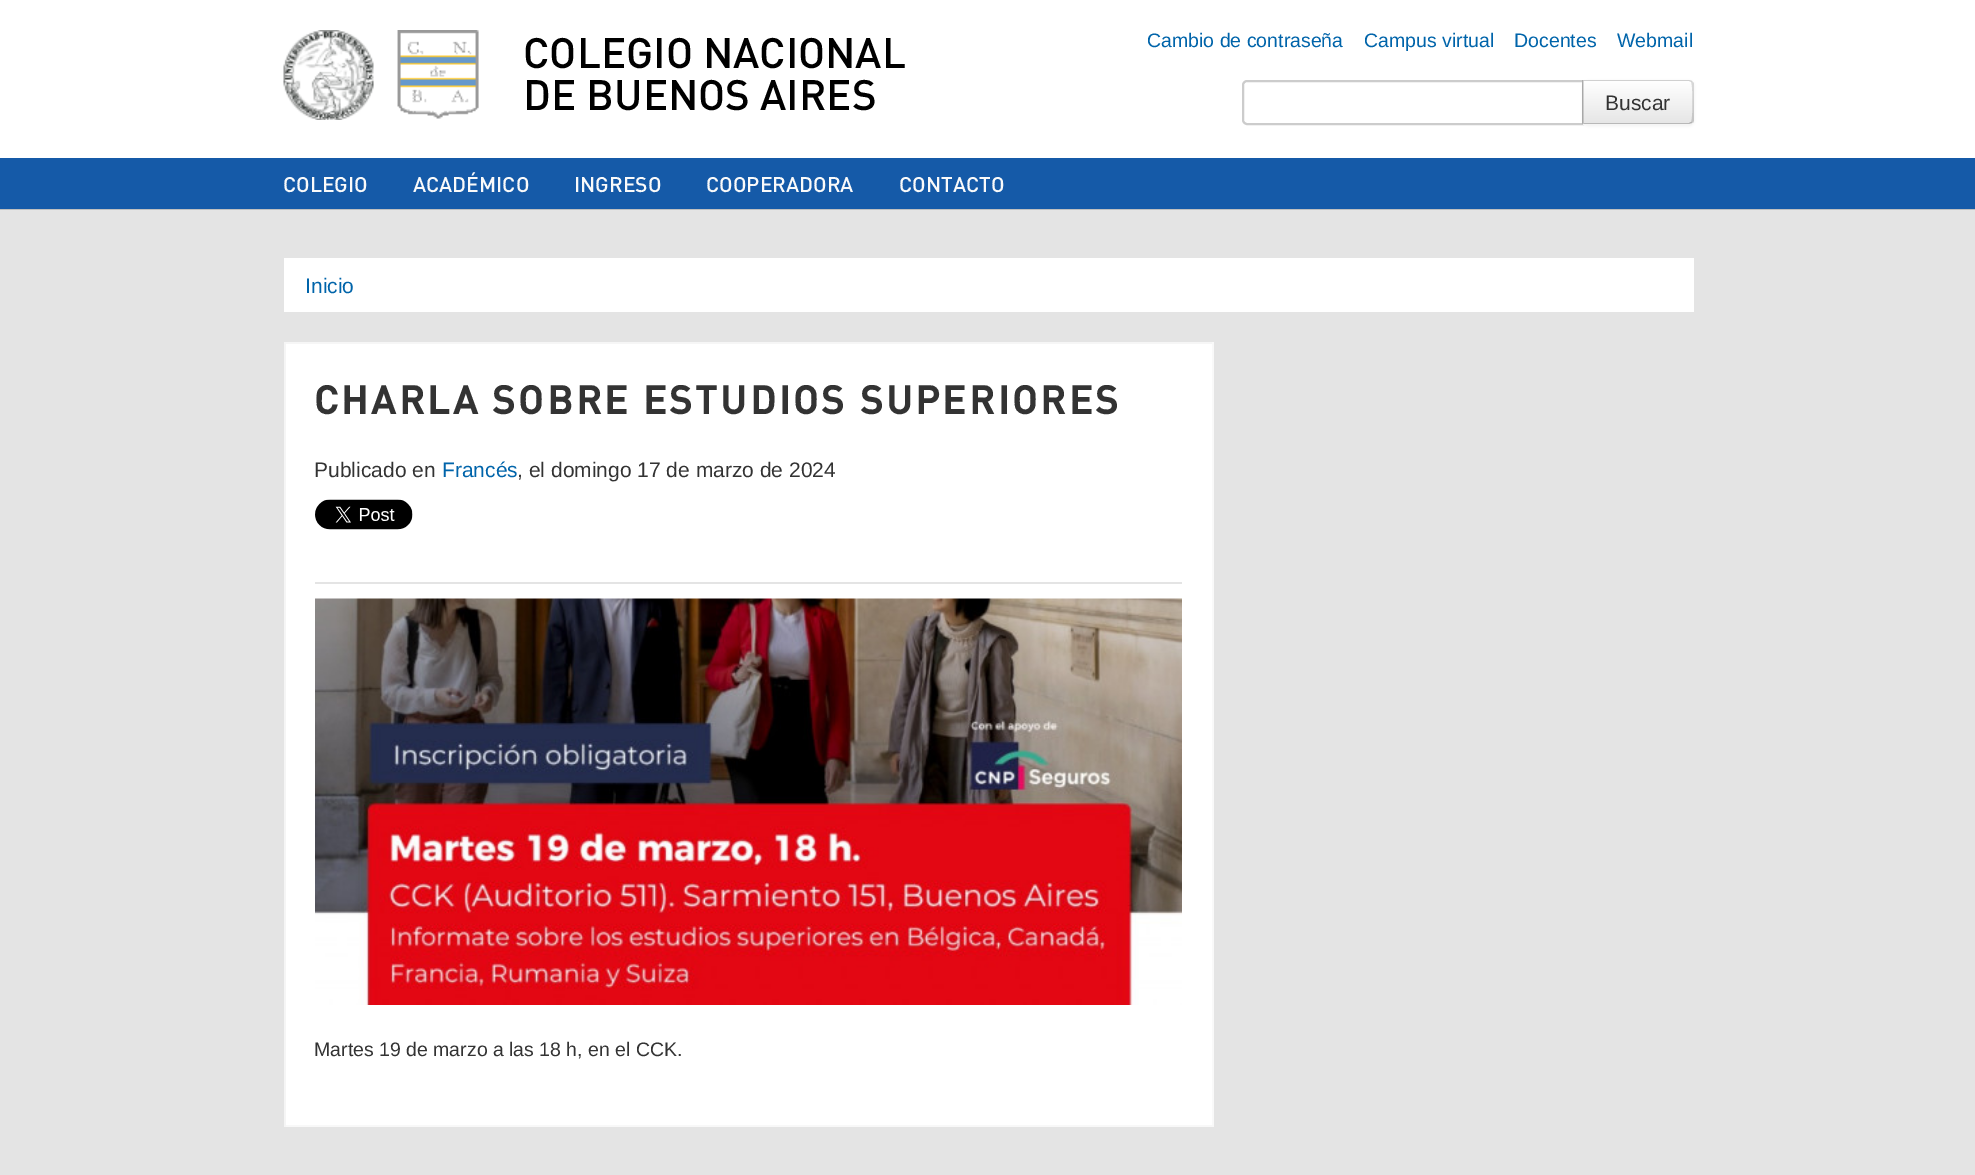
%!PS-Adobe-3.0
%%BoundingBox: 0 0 1975 1175
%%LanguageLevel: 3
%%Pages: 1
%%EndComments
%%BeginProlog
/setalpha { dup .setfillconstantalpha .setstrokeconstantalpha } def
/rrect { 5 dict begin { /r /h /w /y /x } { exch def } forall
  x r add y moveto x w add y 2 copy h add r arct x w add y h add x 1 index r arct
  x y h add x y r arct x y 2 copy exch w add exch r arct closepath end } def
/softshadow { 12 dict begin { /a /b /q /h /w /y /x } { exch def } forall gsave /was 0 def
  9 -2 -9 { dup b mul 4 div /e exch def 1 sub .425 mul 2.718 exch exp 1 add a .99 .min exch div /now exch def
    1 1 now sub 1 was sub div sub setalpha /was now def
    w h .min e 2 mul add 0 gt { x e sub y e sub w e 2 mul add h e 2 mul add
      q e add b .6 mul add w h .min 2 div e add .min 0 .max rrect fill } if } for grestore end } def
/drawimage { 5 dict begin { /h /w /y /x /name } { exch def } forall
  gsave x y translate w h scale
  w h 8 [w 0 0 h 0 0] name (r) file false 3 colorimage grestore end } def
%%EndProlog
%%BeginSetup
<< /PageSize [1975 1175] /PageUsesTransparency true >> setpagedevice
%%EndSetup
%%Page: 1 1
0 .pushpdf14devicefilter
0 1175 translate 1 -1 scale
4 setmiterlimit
0.894 setgray
0 0 1975 1175 rectfill
1 setgray
0 0 1975 158 rectfill
(images/1.raw) 283 30 91 90 drawimage
(images/2.raw) 397 30 82 89 drawimage
0.8 setgray
2 setlinewidth
newpath 1247 81 moveto 1583 81 lineto 1583 124 lineto 1247 124 lineto 1245 124 1243 122 1243 120 curveto 1243 85 lineto 1243 83 1245 81 1247 81 curveto closepath stroke
0 setgray
1583 81 111 45 5 1.5 0.05 softshadow
0.961 setgray
newpath 1583 80 moveto 1689 80 lineto 1692 80 1694 82 1694 85 curveto 1694 120 lineto 1694 123 1692 125 1689 125 curveto 1583 125 lineto closepath fill
gsave
newpath 1583 80 moveto 1689 80 lineto 1692 80 1694 82 1694 85 curveto 1694 120 lineto 1694 123 1692 125 1689 125 curveto 1583 125 lineto closepath clip newpath
gsave newpath 1583 81 moveto 1694 81 lineto 1694 123 lineto 1583 123 lineto closepath clip newpath
<< /ShadingType 2 /ColorSpace /DeviceRGB /Coords [1638 81 1638 123] /Extend [true true] /Function << /FunctionType 2 /Domain [0 1] /C0 [1 1 1] /C1 [0.902 0.902 0.902] /N 1 >> >> shfill grestore
grestore
0.15 setalpha
0 setgray
newpath 1584 81 moveto 1689 81 lineto 1691 82 lineto 1692 81 lineto 1689 80 lineto 1583 80 lineto closepath fill
newpath 1694 121 moveto 1692 123 lineto 1691 122 lineto 1693 121 1693 83 1691 82 curveto 1692 81 lineto 1694 83 lineto closepath fill
0.25 setalpha
newpath 1692 123 moveto 1689 124 lineto 1583 124 lineto 1584 123 lineto 1689 123 lineto 1691 122 lineto closepath fill
0.15 setalpha
newpath 1584 81 moveto 1584 123 lineto 1582 124 lineto 1582 80 lineto 1583 80 lineto closepath fill
1 setalpha
0.082 0.353 0.659 setrgbcolor
0 158 1975 51 rectfill
0.749 setgray
0 209 1975 1 rectfill
1 setgray
284 258 1410 54 rectfill
286 344 926 781 rectfill
0.965 setgray
284 342 930 2 rectfill
0.976 setgray
1212 342 2 785 rectfill
0.973 setgray
284 1125 930 2 rectfill
0.961 setgray
284 342 2 785 rectfill
(images/3.raw) 315 499 98 31 drawimage
0.894 setgray
315 582 867 2 rectfill
(images/4.raw) 315 598 867 407 drawimage
/DIN-Medium [42 0 0 -42 0 0] selectfont
0 setgray
523 68 moveto (COLEGIO NACIONAL) show
523 110 moveto (DE BUENOS AIRES) show
/LiberationSans-Regular [19.5 0 0 -19.5 0 0] selectfont
0 0.392 0.667 setrgbcolor
1147 47 moveto (Cambio de contraseña) show
1364 47 moveto (Campus virtual) show
1514 47 moveto (Docentes) show
1617 47 moveto (Webmail) show
/LiberationSans-Regular [21 0 0 -21 0 0] selectfont
0.2 setgray
1605 110 moveto (Buscar) show
/DIN-Medium [21 0 0 -21 0 0] selectfont
0.98 setgray
283 192 moveto (COLEGIO) show
413 192 moveto (ACADÉMICO) show
574 192 moveto (INGRESO) show
706 192 moveto (COOPERADORA) show
899 192 moveto (CONTACTO) show
/LiberationSans-Regular [21 0 0 -21 0 0] selectfont
0 0.392 0.667 setrgbcolor
305 293 moveto (Inicio) show
/DIN-Bold [39 0 0 -39 0 0] selectfont
0.2 setgray
314 414 moveto 3 0 (CHARLA SOBRE ESTUDIOS SUPERIORES) ashow
/LiberationSans-Regular [21 0 0 -21 0 0] selectfont
314 477 moveto (Publicado en) show
0 0.392 0.667 setrgbcolor
442 477 moveto (Francés) show
0.2 setgray
517 477 moveto (, el domingo 17 de marzo de 2024) show
/LiberationSans-Regular [19.5 0 0 -19.5 0 0] selectfont
314 1056 moveto (Martes 19 de marzo a las 18 h, en el CCK.) show
.poppdf14devicefilter showpage
%%EOF
